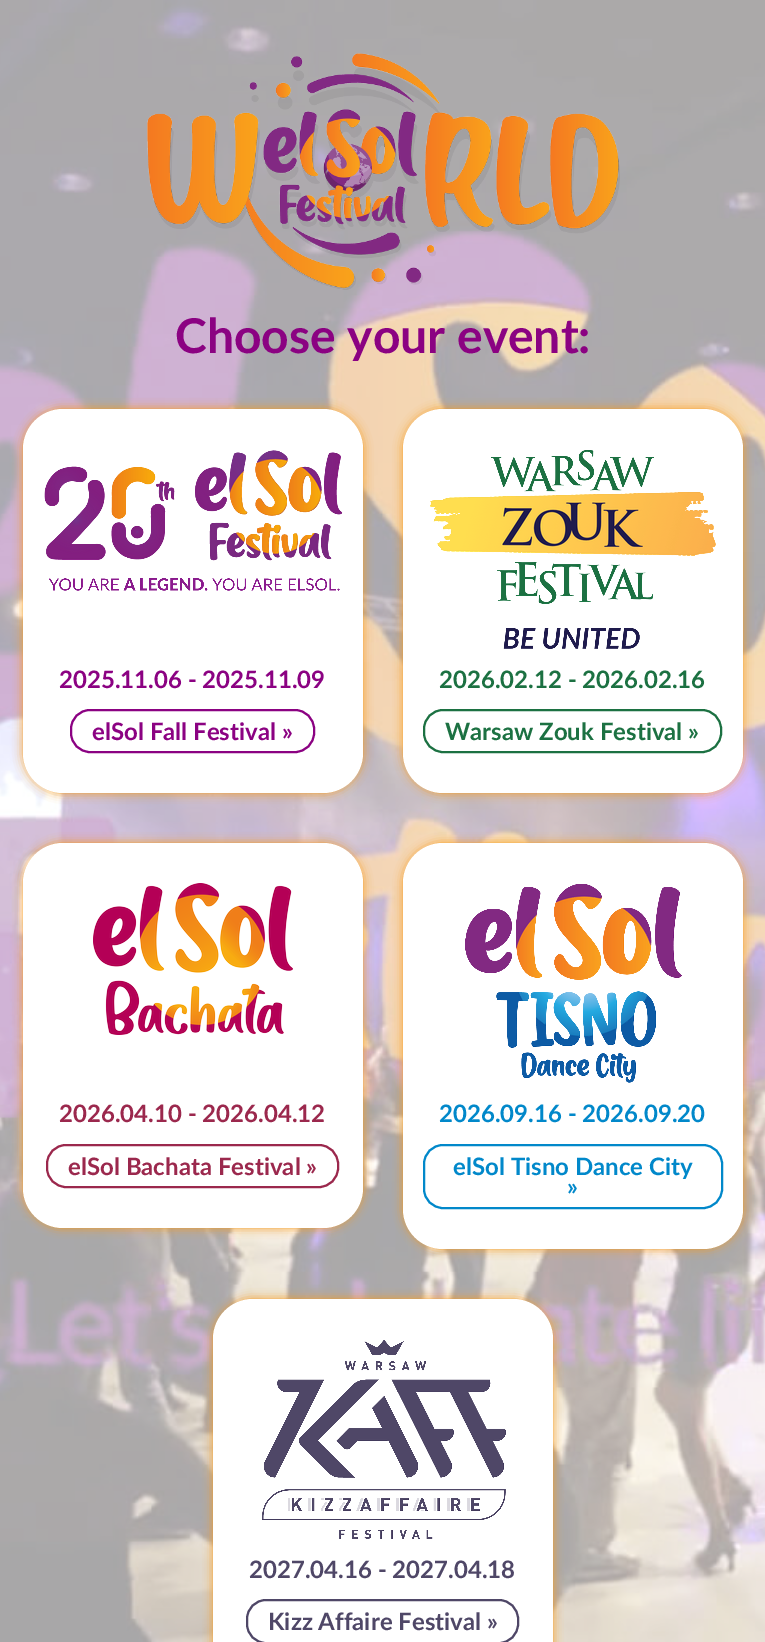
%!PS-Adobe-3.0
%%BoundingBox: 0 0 765 1642
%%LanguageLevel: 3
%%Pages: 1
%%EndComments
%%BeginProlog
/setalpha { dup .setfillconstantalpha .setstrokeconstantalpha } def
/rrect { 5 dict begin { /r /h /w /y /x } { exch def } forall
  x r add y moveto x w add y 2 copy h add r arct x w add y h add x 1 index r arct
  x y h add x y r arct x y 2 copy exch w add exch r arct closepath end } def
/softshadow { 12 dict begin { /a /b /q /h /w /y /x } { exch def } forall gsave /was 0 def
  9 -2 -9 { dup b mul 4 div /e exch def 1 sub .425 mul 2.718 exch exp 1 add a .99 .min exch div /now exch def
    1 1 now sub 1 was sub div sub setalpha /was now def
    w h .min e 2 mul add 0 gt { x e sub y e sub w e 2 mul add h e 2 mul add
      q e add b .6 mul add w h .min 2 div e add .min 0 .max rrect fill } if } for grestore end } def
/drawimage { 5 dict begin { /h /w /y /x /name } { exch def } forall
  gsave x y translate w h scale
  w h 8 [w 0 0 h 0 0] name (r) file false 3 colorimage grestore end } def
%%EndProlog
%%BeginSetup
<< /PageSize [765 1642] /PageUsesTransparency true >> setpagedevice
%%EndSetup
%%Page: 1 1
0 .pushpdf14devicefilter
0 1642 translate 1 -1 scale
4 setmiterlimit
1 setgray
0 0 765 1642 rectfill
(images/1.raw) 0 0 765 1642 drawimage
(images/2.raw) 147 53 473 237 drawimage
0.973 0.608 0.11 setrgbcolor
23 409 340 384 40 5 1 softshadow
1 setgray
23 409 340 384 40 rrect fill
(images/3.raw) 44 450 299 141 drawimage
0.545 0.008 0.51 setrgbcolor
2 setlinewidth
71 710 243 42 19 rrect stroke
0.973 0.608 0.11 setrgbcolor
403 409 340 384 40 5 1 softshadow
1 setgray
403 409 340 384 40 rrect fill
(images/4.raw) 430 450 286 199 drawimage
0.11 0.443 0.259 setrgbcolor
424 710 297 42 19 rrect stroke
0.973 0.608 0.11 setrgbcolor
23 843 340 385 40 5 1 softshadow
1 setgray
23 843 340 385 40 rrect fill
(images/5.raw) 93 883 200 152 drawimage
0.608 0.157 0.302 setrgbcolor
47 1145 291 42 19 rrect stroke
0.973 0.608 0.11 setrgbcolor
403 843 340 406 40 5 1 softshadow
1 setgray
403 843 340 406 40 rrect fill
(images/6.raw) 465 884 217 199 drawimage
0.004 0.533 0.792 setrgbcolor
424 1145 298 63 19 rrect stroke
0.973 0.608 0.11 setrgbcolor
213 1299 340 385 40 5 1 softshadow
1 setgray
213 1299 340 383 40 rrect fill
(images/7.raw) 262 1340 244 199 drawimage
0.31 0.278 0.404 setrgbcolor
247 1600 271 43 19 rrect stroke
/Lato-Bold [48 0 0 -48 0 0] selectfont
0.545 0.008 0.51 setrgbcolor
175 353 moveto (Choose your event:) show
/Lato-Bold [24 0 0 -24 0 0] selectfont
59 688 moveto (2025.11.06 - 2025.11.09) show
92 740 moveto (elSol Fall Festival ») show
0.11 0.443 0.259 setrgbcolor
439 688 moveto (2026.02.12 - 2026.02.16) show
445 740 moveto (Warsaw Zouk Festival ») show
0.608 0.157 0.302 setrgbcolor
59 1122 moveto (2026.04.10 - 2026.04.12) show
68 1175 moveto (elSol Bachata Festival ») show
0.004 0.533 0.792 setrgbcolor
439 1122 moveto (2026.09.16 - 2026.09.20) show
453 1175 moveto (elSol Tisno Dance City) show
567 1195 moveto (») show
0.31 0.278 0.404 setrgbcolor
249 1578 moveto (2027.04.16 - 2027.04.18) show
268 1630 moveto (Kizz Affaire Festival ») show
.poppdf14devicefilter showpage
%%EOF
